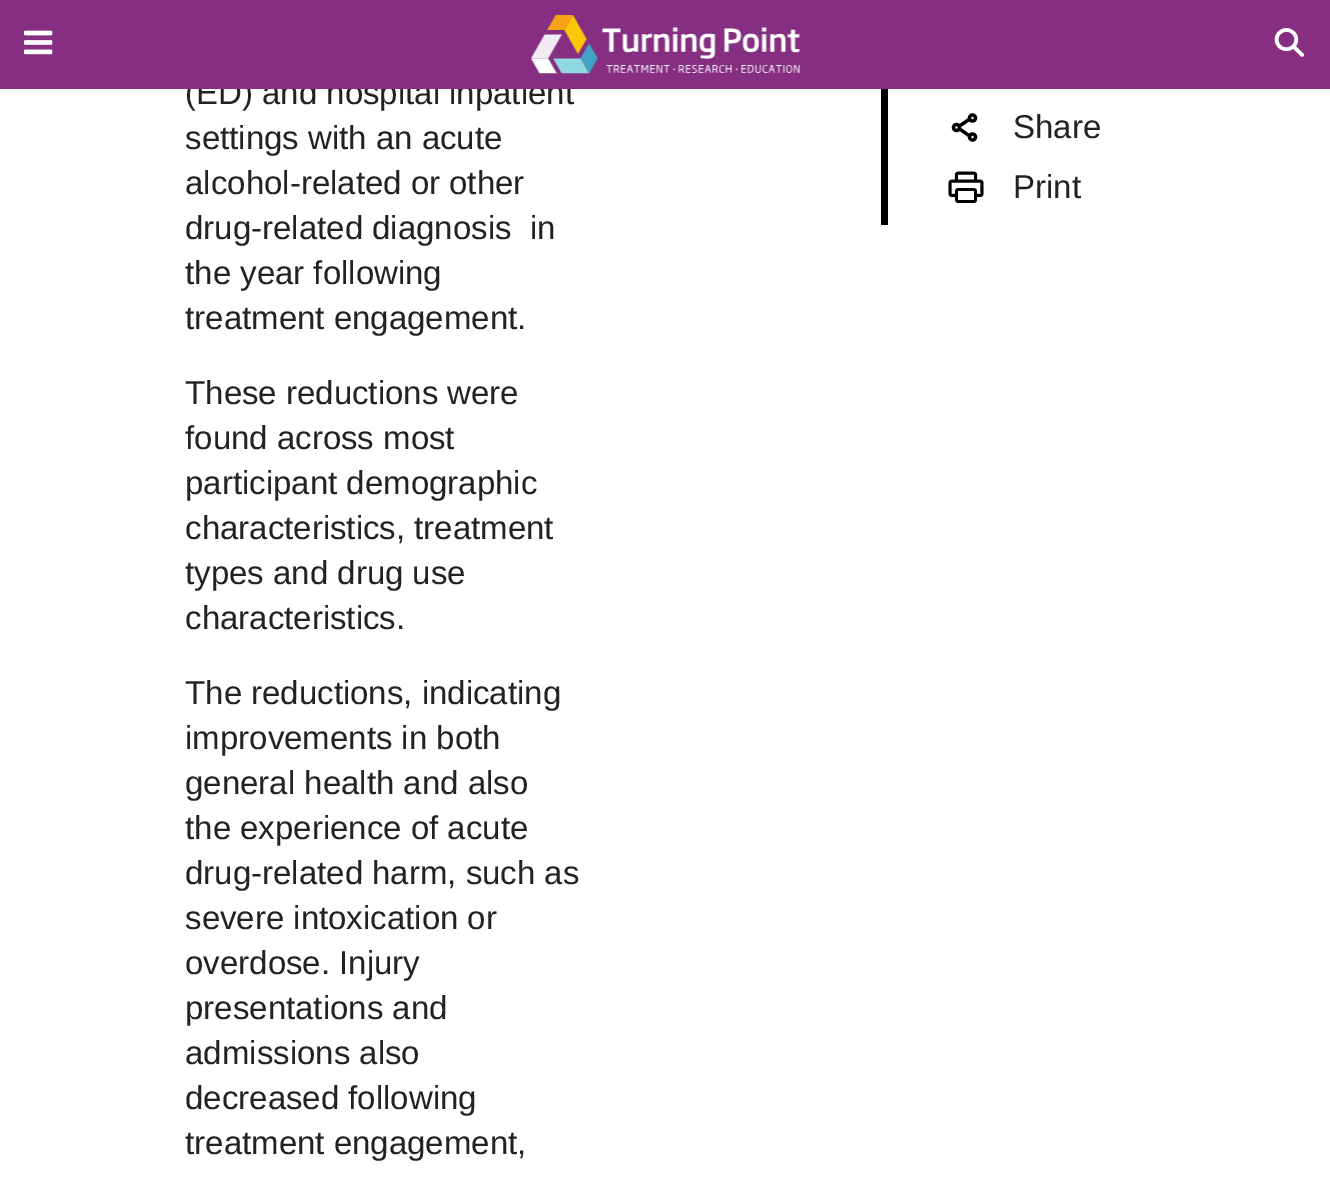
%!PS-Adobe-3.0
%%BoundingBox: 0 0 1330 1178
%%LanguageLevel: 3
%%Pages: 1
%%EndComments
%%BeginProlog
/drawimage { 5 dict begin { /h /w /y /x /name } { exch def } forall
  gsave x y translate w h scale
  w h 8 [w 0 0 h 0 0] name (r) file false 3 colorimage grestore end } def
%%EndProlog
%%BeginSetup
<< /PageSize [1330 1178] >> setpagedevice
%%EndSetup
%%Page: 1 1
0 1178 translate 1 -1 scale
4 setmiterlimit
1 setgray
0 0 1330 1178 rectfill
0 setgray
881 89 7 136 rectfill
3.2 setlinewidth
1 setlinecap
1 setlinejoin
newpath 959.5 126 moveto 969 119.5 lineto 959.5 129 moveto 969 135.5 lineto stroke
0 setlinecap
0 setlinejoin
newpath 972.5 118 3 0 360 arc closepath stroke
newpath 972.5 137 3 0 360 arc closepath stroke
newpath 956.5 127.5 3 0 360 arc closepath stroke
(images/4.raw) 948 171 36 32 drawimage
/LiberationSans-Regular [33 0 0 -33 0 0] selectfont
0.133 setgray
185 104 moveto (\(ED\) and hospital inpatient) show
0.522 0.18 0.51 setrgbcolor
0 0 1330 89 rectfill
(images/2.raw) 531 15 269 59 drawimage
(images/3.raw) 1274 28 31 29 drawimage
(images/1.raw) 24 30 29 25 drawimage
0.133 setgray
185 149 moveto (settings with an acute) show
185 194 moveto (alcohol-related or other) show
185 239 moveto (drug-related diagnosis  in) show
185 284 moveto (the year following) show
185 329 moveto (treatment engagement.) show
185 404 moveto (These reductions were) show
185 449 moveto (found across most) show
185 494 moveto (participant demographic) show
185 539 moveto (characteristics, treatment) show
185 584 moveto (types and drug use) show
185 629 moveto (characteristics.) show
185 704 moveto (The reductions, indicating) show
185 749 moveto (improvements in both) show
185 794 moveto (general health and also) show
185 839 moveto (the experience of acute) show
185 884 moveto (drug-related harm, such as) show
185 929 moveto (severe intoxication or) show
185 974 moveto (overdose. Injury) show
185 1019 moveto (presentations and) show
185 1064 moveto (admissions also) show
185 1109 moveto (decreased following) show
185 1154 moveto (treatment engagement,) show
1013 138 moveto (Share) show
1013 198 moveto (Print) show
showpage
%%EOF
